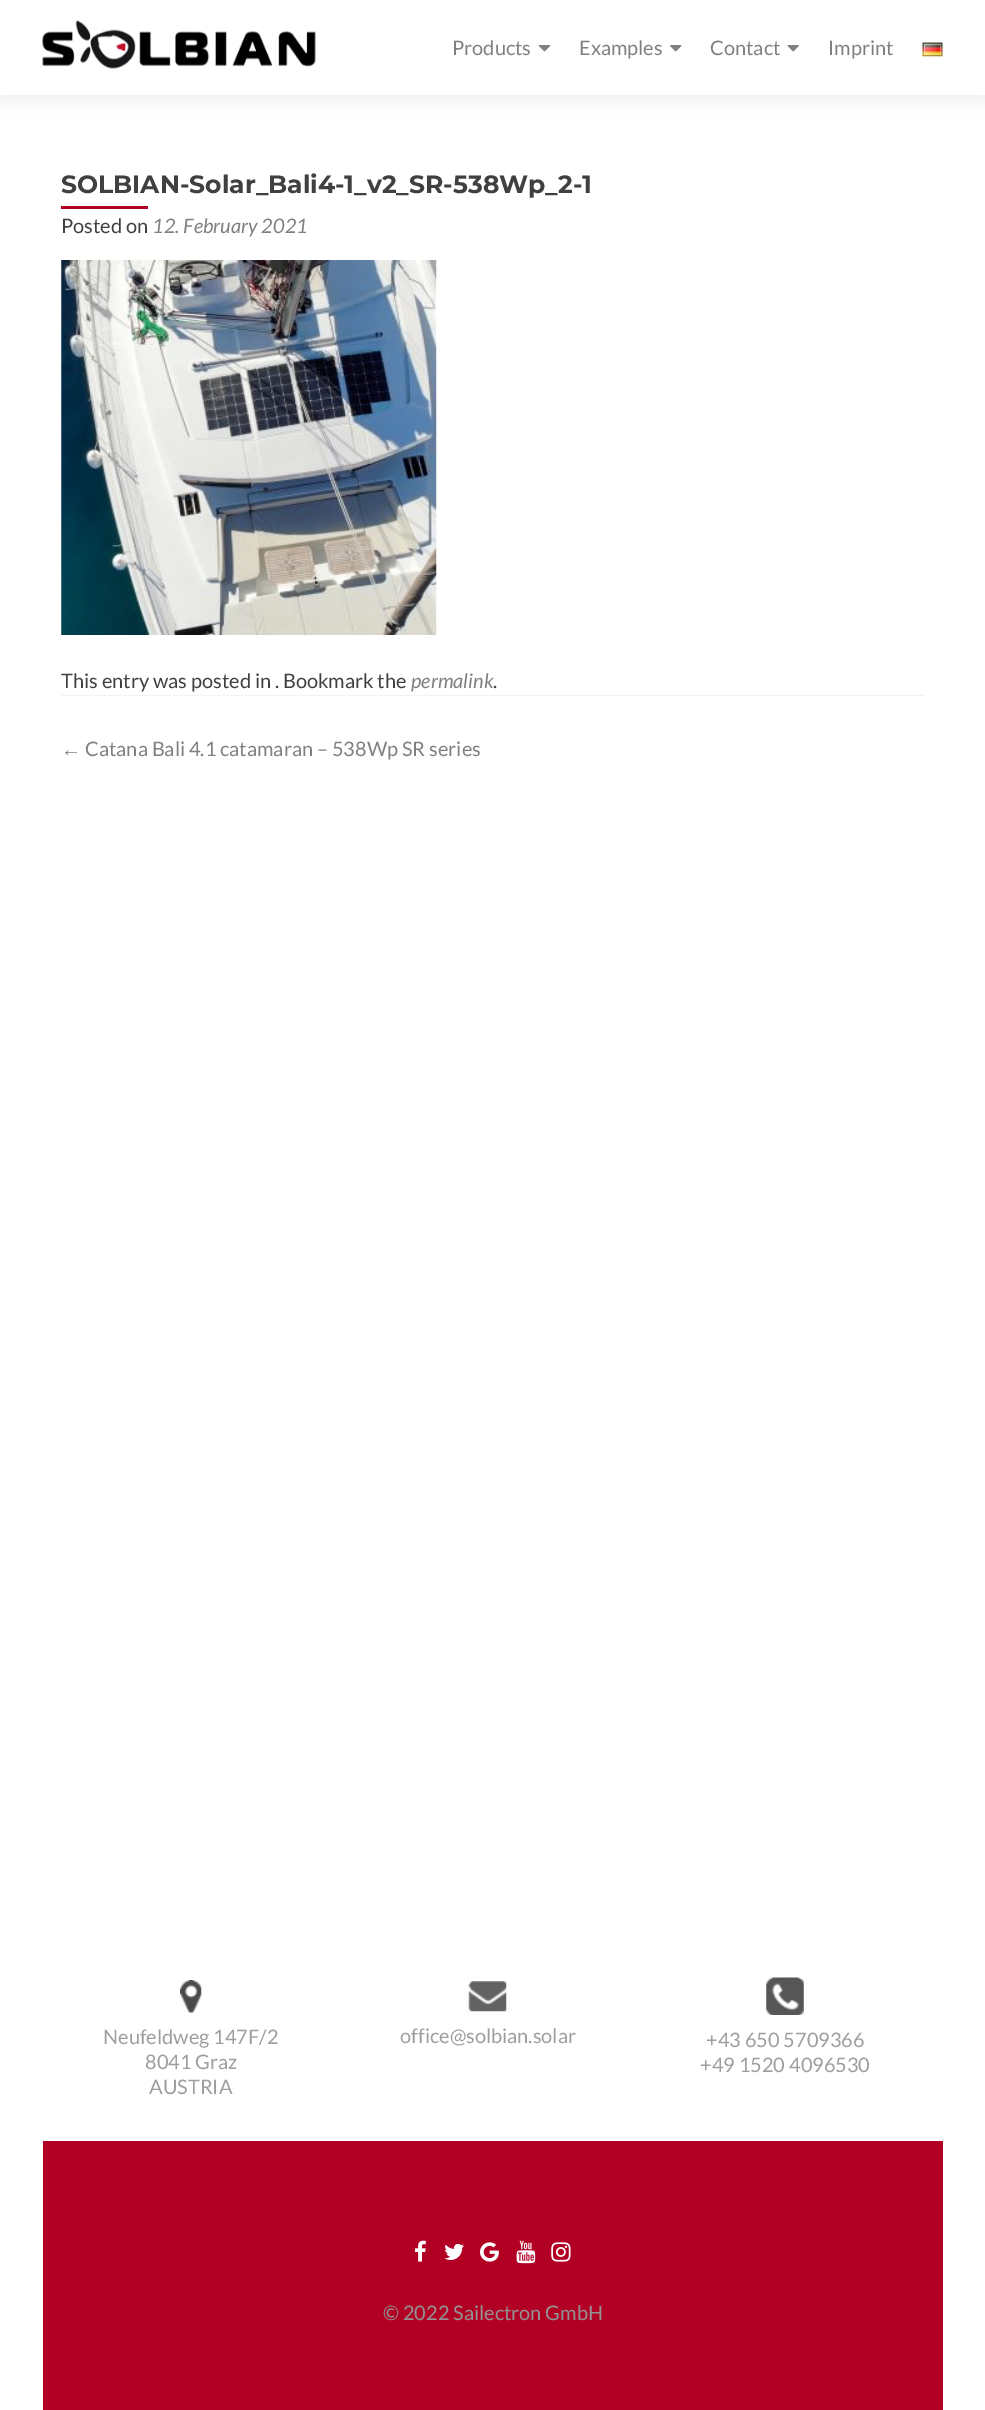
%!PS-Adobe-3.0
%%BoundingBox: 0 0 985 2410
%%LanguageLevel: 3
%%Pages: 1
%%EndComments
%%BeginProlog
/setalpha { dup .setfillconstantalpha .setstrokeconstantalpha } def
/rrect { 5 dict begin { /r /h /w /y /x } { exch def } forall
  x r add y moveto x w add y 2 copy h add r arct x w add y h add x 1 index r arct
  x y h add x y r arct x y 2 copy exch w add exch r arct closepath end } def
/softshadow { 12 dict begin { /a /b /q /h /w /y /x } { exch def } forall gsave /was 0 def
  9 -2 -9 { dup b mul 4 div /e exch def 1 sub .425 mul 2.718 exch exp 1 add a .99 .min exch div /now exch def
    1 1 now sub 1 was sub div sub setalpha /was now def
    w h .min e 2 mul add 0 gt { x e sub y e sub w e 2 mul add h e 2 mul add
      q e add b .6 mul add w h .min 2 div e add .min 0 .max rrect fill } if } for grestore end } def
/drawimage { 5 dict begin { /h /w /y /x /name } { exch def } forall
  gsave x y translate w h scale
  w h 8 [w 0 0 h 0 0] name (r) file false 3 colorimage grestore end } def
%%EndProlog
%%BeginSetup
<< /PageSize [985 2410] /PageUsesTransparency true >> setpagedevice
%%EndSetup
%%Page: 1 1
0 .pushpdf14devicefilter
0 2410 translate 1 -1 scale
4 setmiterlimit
1 setgray
0 0 985 2410 rectfill
0.196 setgray
0 6 985 95 0 7 0.08 softshadow
1 setgray
0 0 985 95 rectfill
(images/1.raw) 42 20 274 49 drawimage
(images/2.raw) 538 45 13 7 drawimage
(images/3.raw) 670 45 12 7 drawimage
(images/4.raw) 787 45 12 7 drawimage
(images/5.raw) 922 42 21 15 drawimage
0.949 setgray
61 695 863 1 rectfill
0.694 0 0.141 setrgbcolor
61 206 87 3 rectfill
(images/6.raw) 61 260 376 375 drawimage
(images/7.raw) 180 1980 22 33 drawimage
(images/8.raw) 468 1981 39 31 drawimage
(images/9.raw) 766 1977 38 38 drawimage
43 2141 900 269 rectfill
(images/10.raw) 414 2240 12 22 drawimage
(images/11.raw) 444 2243 20 17 drawimage
(images/12.raw) 480 2242 19 20 drawimage
(images/13.raw) 516 2240 20 24 drawimage
(images/14.raw) 551 2242 20 20 drawimage
/Lato-Regular [20 0 0 -20 0 0] selectfont
0.502 setgray
452 55 moveto (Products) show
579 55 moveto (Examples) show
710 55 moveto (Contact) show
828 55 moveto (Imprint) show
/Montserrat-Thin [25 0 0 -25 0 0] selectfont
0.251 setgray
61 193 moveto (SOLBIAN-Solar_Bali4-1_v2_SR-538Wp_2-1) show
/Lato-Regular [20 0 0 -20 0 0] selectfont
61 233 moveto (Posted on) show
/Lato-Italic [20 0 0 -20 0 0] selectfont
0.502 setgray
152 233 moveto (12. February 2021) show
/Lato-Regular [20 0 0 -20 0 0] selectfont
0.251 setgray
61 688 moveto (This entry was posted in . Bookmark the) show
/Lato-Italic [20 0 0 -20 0 0] selectfont
0.502 setgray
411 688 moveto (permalink) show
/Lato-Regular [20 0 0 -20 0 0] selectfont
0.251 setgray
493 688 moveto (.) show
/LiberationSans-Regular [20 0 0 -20 0 0] selectfont
0.502 setgray
61 756 moveto (←) show
/Lato-Regular [20 0 0 -20 0 0] selectfont
85 756 moveto (Catana Bali 4.1 catamaran – 538Wp SR series) show
0.62 setgray
103 2044 moveto (Neufeldweg 147F/2) show
145 2069 moveto (8041 Graz) show
149 2094 moveto (AUSTRIA) show
400 2043 moveto (office@solbian.solar) show
706 2047 moveto (+43 650 5709366) show
700 2072 moveto (+49 1520 4096530) show
0.576 setgray
383 2320 moveto (© 2022 Sailectron GmbH) show
.poppdf14devicefilter showpage
%%EOF
